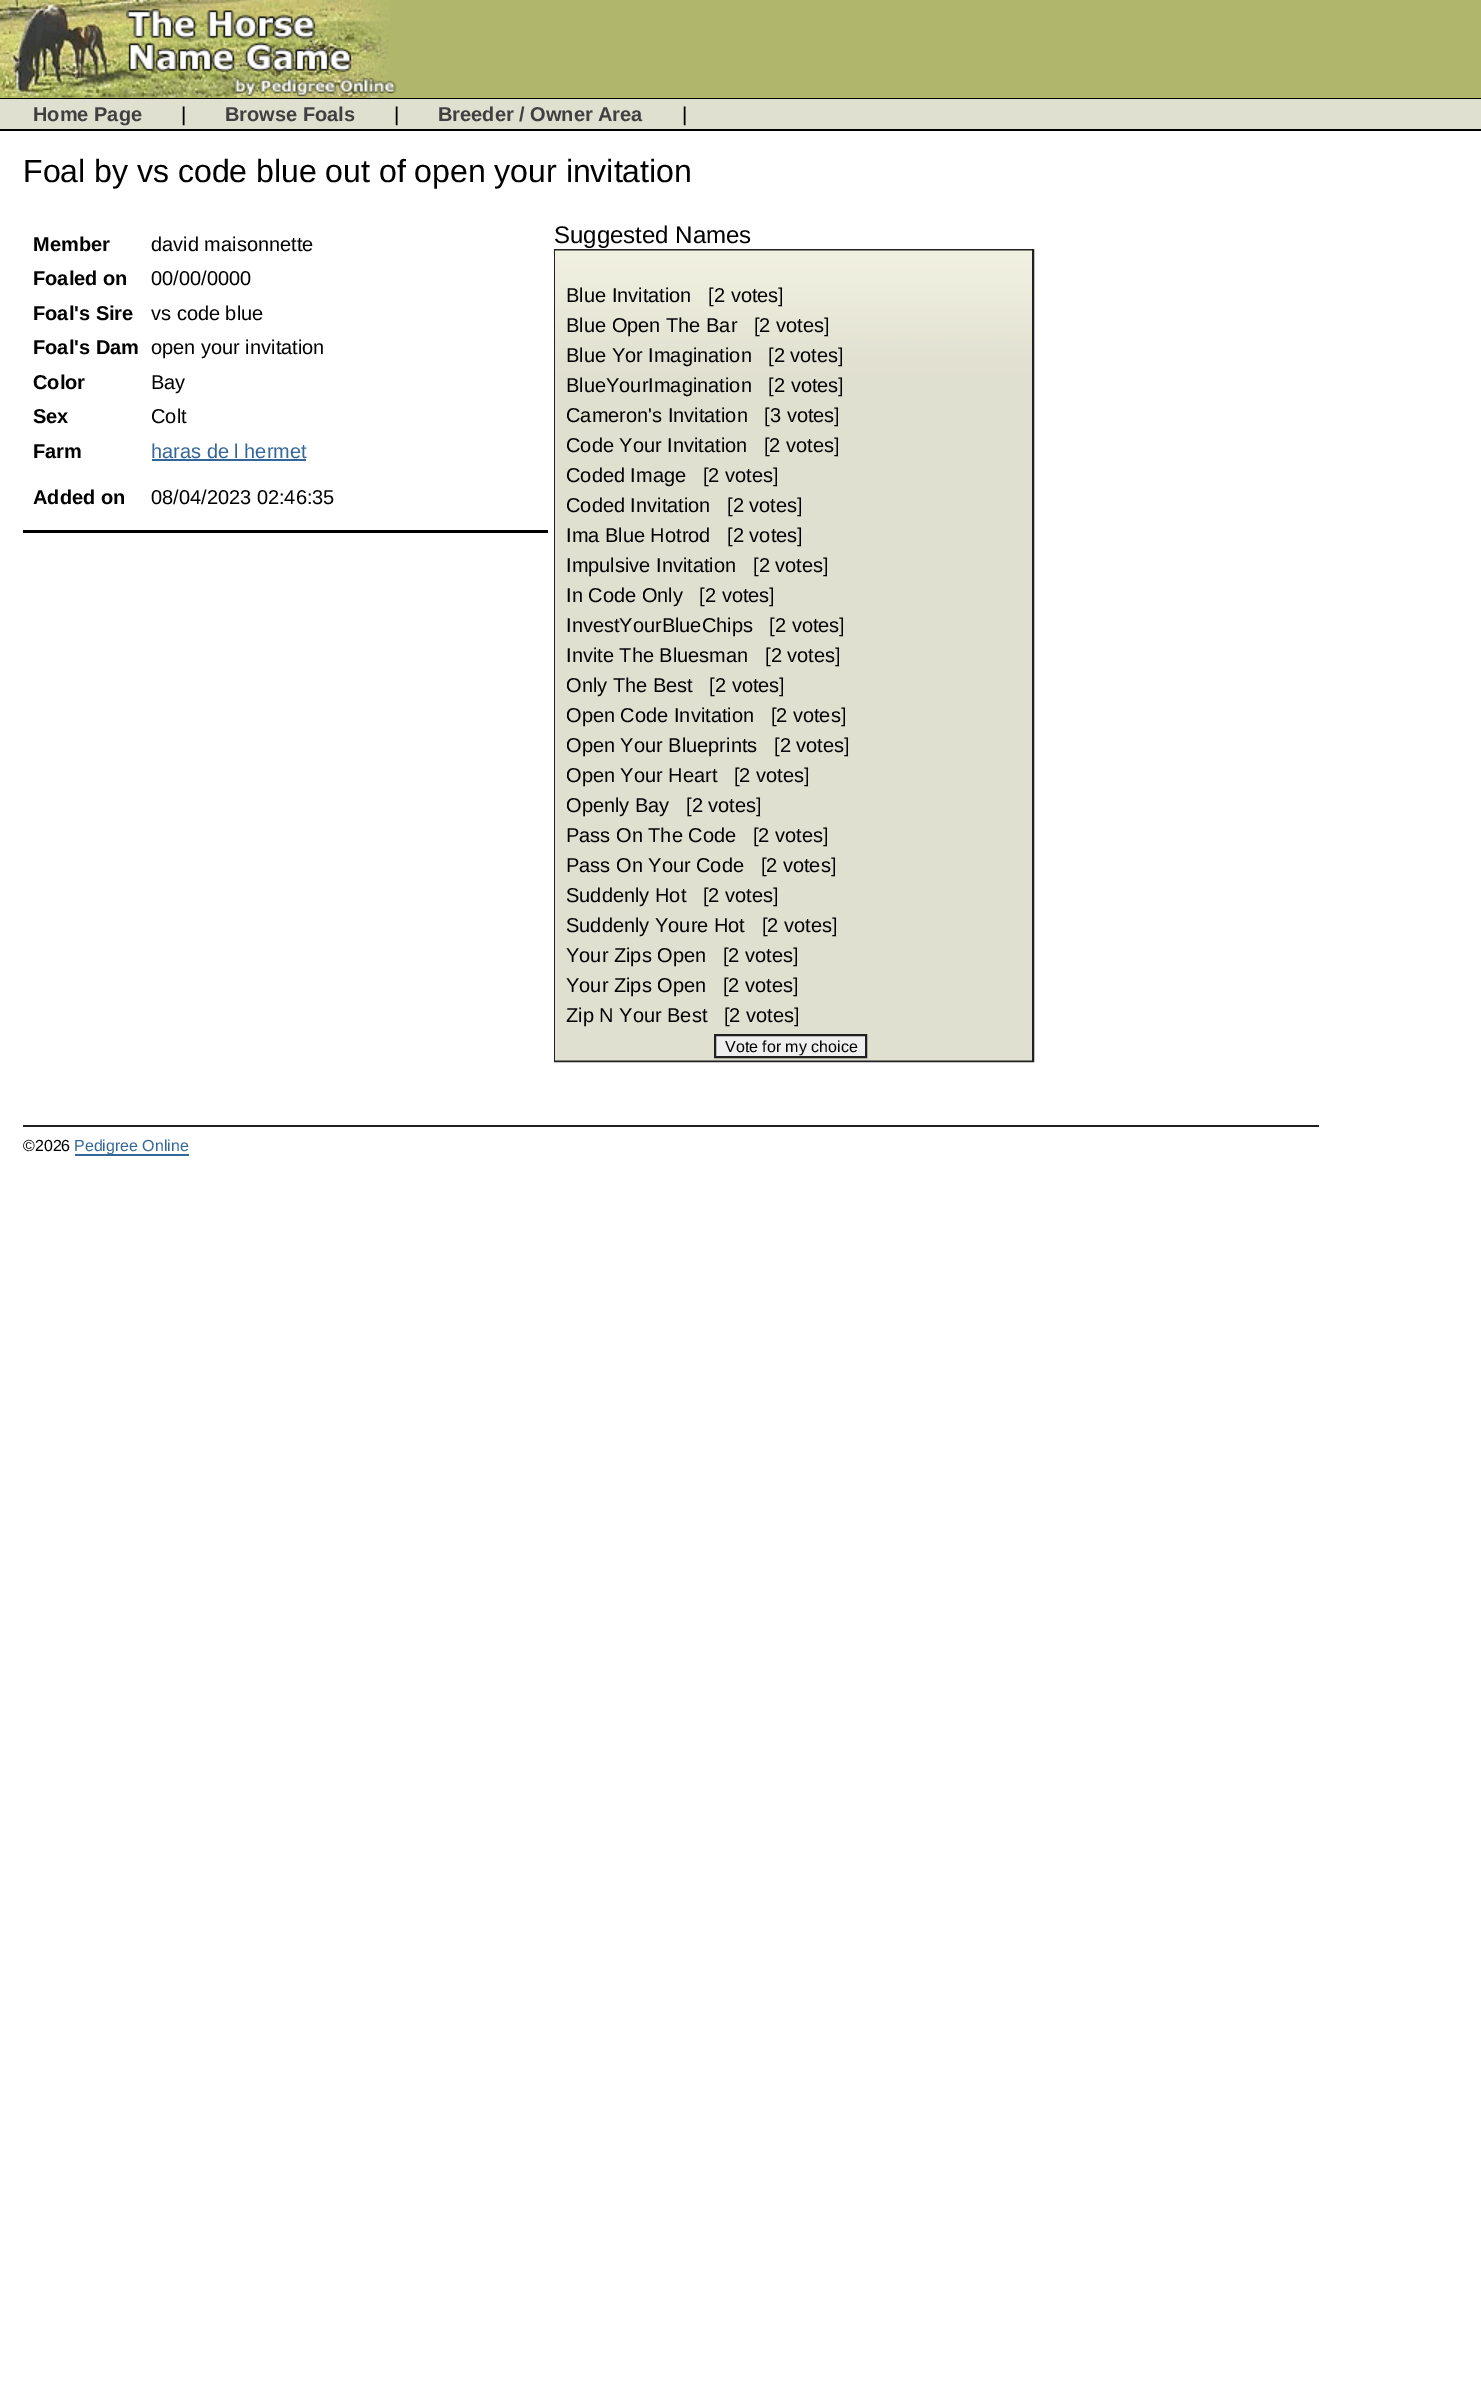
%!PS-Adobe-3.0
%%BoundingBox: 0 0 1481 2398
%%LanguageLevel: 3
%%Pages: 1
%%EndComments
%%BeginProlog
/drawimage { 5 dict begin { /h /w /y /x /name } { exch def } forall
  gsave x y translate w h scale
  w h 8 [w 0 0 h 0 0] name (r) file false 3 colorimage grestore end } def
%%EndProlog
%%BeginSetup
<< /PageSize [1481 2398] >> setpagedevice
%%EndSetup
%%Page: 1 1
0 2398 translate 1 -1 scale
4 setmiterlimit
1 setgray
0 0 1481 2398 rectfill
0.69 0.718 0.427 setrgbcolor
0 0 1481 98 rectfill
(images/1.raw) 0 0 397 98 drawimage
0 setgray
0 98 1481 1 rectfill
0.878 0.878 0.816 setrgbcolor
0 99 1481 30 rectfill
0 setgray
0 129 1481 2 rectfill
0.2 0.4 0.6 setrgbcolor
152 459 154 2 rectfill
0 setgray
23 530 525 3 rectfill
0.125 setgray
2 setlinewidth
555 250 478 811 rectstroke
(images/2.raw) 555 250 477 811 drawimage
0.937 setgray
newpath 715 1035 moveto 866 1035 lineto 866 1057 lineto 715 1057 lineto closepath gsave fill grestore
0.125 setgray
stroke
23 1125 1296 2 rectfill
0.2 0.4 0.6 setrgbcolor
75 1154 114 2 rectfill
/LiberationSans-Bold [20 0 0 -20 0 0] selectfont
0.251 setgray
33 121 moveto (Home Page) show
/LiberationSans-Regular [20 0 0 -20 0 0] selectfont
0 setgray
181 121 moveto (|) show
/LiberationSans-Bold [20 0 0 -20 0 0] selectfont
0.251 setgray
225 121 moveto (Browse Foals) show
/LiberationSans-Regular [20 0 0 -20 0 0] selectfont
0 setgray
394 121 moveto (|) show
/LiberationSans-Bold [20 0 0 -20 0 0] selectfont
0.251 setgray
438 121 moveto (Breeder / Owner Area) show
/LiberationSans-Regular [20 0 0 -20 0 0] selectfont
0 setgray
682 121 moveto (|) show
/LiberationSans-Regular [32 0 0 -32 0 0] selectfont
23 182 moveto (Foal by vs code blue out of open your invitation) show
/LiberationSans-Bold [20 0 0 -20 0 0] selectfont
33 251 moveto (Member) show
/LiberationSans-Regular [20 0 0 -20 0 0] selectfont
151 251 moveto (david maisonnette) show
/LiberationSans-Bold [20 0 0 -20 0 0] selectfont
33 285 moveto (Foaled on) show
/LiberationSans-Regular [20 0 0 -20 0 0] selectfont
151 285 moveto (00/00/0000) show
/LiberationSans-Bold [20 0 0 -20 0 0] selectfont
33 320 moveto (Foal's Sire) show
/LiberationSans-Regular [20 0 0 -20 0 0] selectfont
151 320 moveto (vs code blue) show
/LiberationSans-Bold [20 0 0 -20 0 0] selectfont
33 354 moveto (Foal's Dam) show
/LiberationSans-Regular [20 0 0 -20 0 0] selectfont
151 354 moveto (open your invitation) show
/LiberationSans-Bold [20 0 0 -20 0 0] selectfont
33 389 moveto (Color) show
/LiberationSans-Regular [20 0 0 -20 0 0] selectfont
151 389 moveto (Bay) show
/LiberationSans-Bold [20 0 0 -20 0 0] selectfont
33 423 moveto (Sex) show
/LiberationSans-Regular [20 0 0 -20 0 0] selectfont
151 423 moveto (Colt) show
/LiberationSans-Bold [20 0 0 -20 0 0] selectfont
33 458 moveto (Farm) show
/LiberationSans-Regular [20 0 0 -20 0 0] selectfont
0.2 0.4 0.6 setrgbcolor
151 458 moveto (haras de l hermet) show
/LiberationSans-Bold [20 0 0 -20 0 0] selectfont
0 setgray
33 504 moveto (Added on) show
/LiberationSans-Regular [20 0 0 -20 0 0] selectfont
151 504 moveto (08/04/2023 02:46:35) show
/LiberationSans-Regular [24 0 0 -24 0 0] selectfont
554 243 moveto (Suggested Names) show
/LiberationSans-Regular [20 0 0 -20 0 0] selectfont
566 302 moveto (Blue Invitation   [2 votes]) show
566 332 moveto (Blue Open The Bar   [2 votes]) show
566 362 moveto (Blue Yor Imagination) show
768 362 moveto ([2 votes]) show
566 392 moveto (BlueYourImagination   [2 votes]) show
566 422 moveto (Cameron's Invitation   [3 votes]) show
566 452 moveto (Code Your Invitation   [2 votes]) show
566 482 moveto (Coded Image   [2 votes]) show
566 512 moveto (Coded Invitation) show
727 512 moveto ([2 votes]) show
566 542 moveto (Ima Blue Hotrod   [2 votes]) show
566 572 moveto (Impulsive Invitation) show
753 572 moveto ([2 votes]) show
566 602 moveto (In Code Only   [2 votes]) show
566 632 moveto (InvestYourBlueChips   [2 votes]) show
566 662 moveto (Invite The Bluesman   [2 votes]) show
566 692 moveto (Only The Best   [2 votes]) show
566 722 moveto (Open Code Invitation   [2 votes]) show
566 752 moveto (Open Your Blueprints) show
774 752 moveto ([2 votes]) show
566 782 moveto (Open Your Heart   [2 votes]) show
566 812 moveto (Openly Bay) show
686 812 moveto ([2 votes]) show
566 842 moveto (Pass On The Code   [2 votes]) show
566 872 moveto (Pass On Your Code   [2 votes]) show
566 902 moveto (Suddenly Hot   [2 votes]) show
566 932 moveto (Suddenly Youre Hot   [2 votes]) show
566 962 moveto (Your Zips Open   [2 votes]) show
566 992 moveto (Your Zips Open   [2 votes]) show
566 1022 moveto (Zip N Your Best   [2 votes]) show
/LiberationSans-Regular [16 0 0 -16 0 0] selectfont
725 1052 moveto (Vote for my choice) show
23 1151 moveto (©2026) show
0.2 0.4 0.6 setrgbcolor
74 1151 moveto (Pedigree Online) show
showpage
%%EOF
